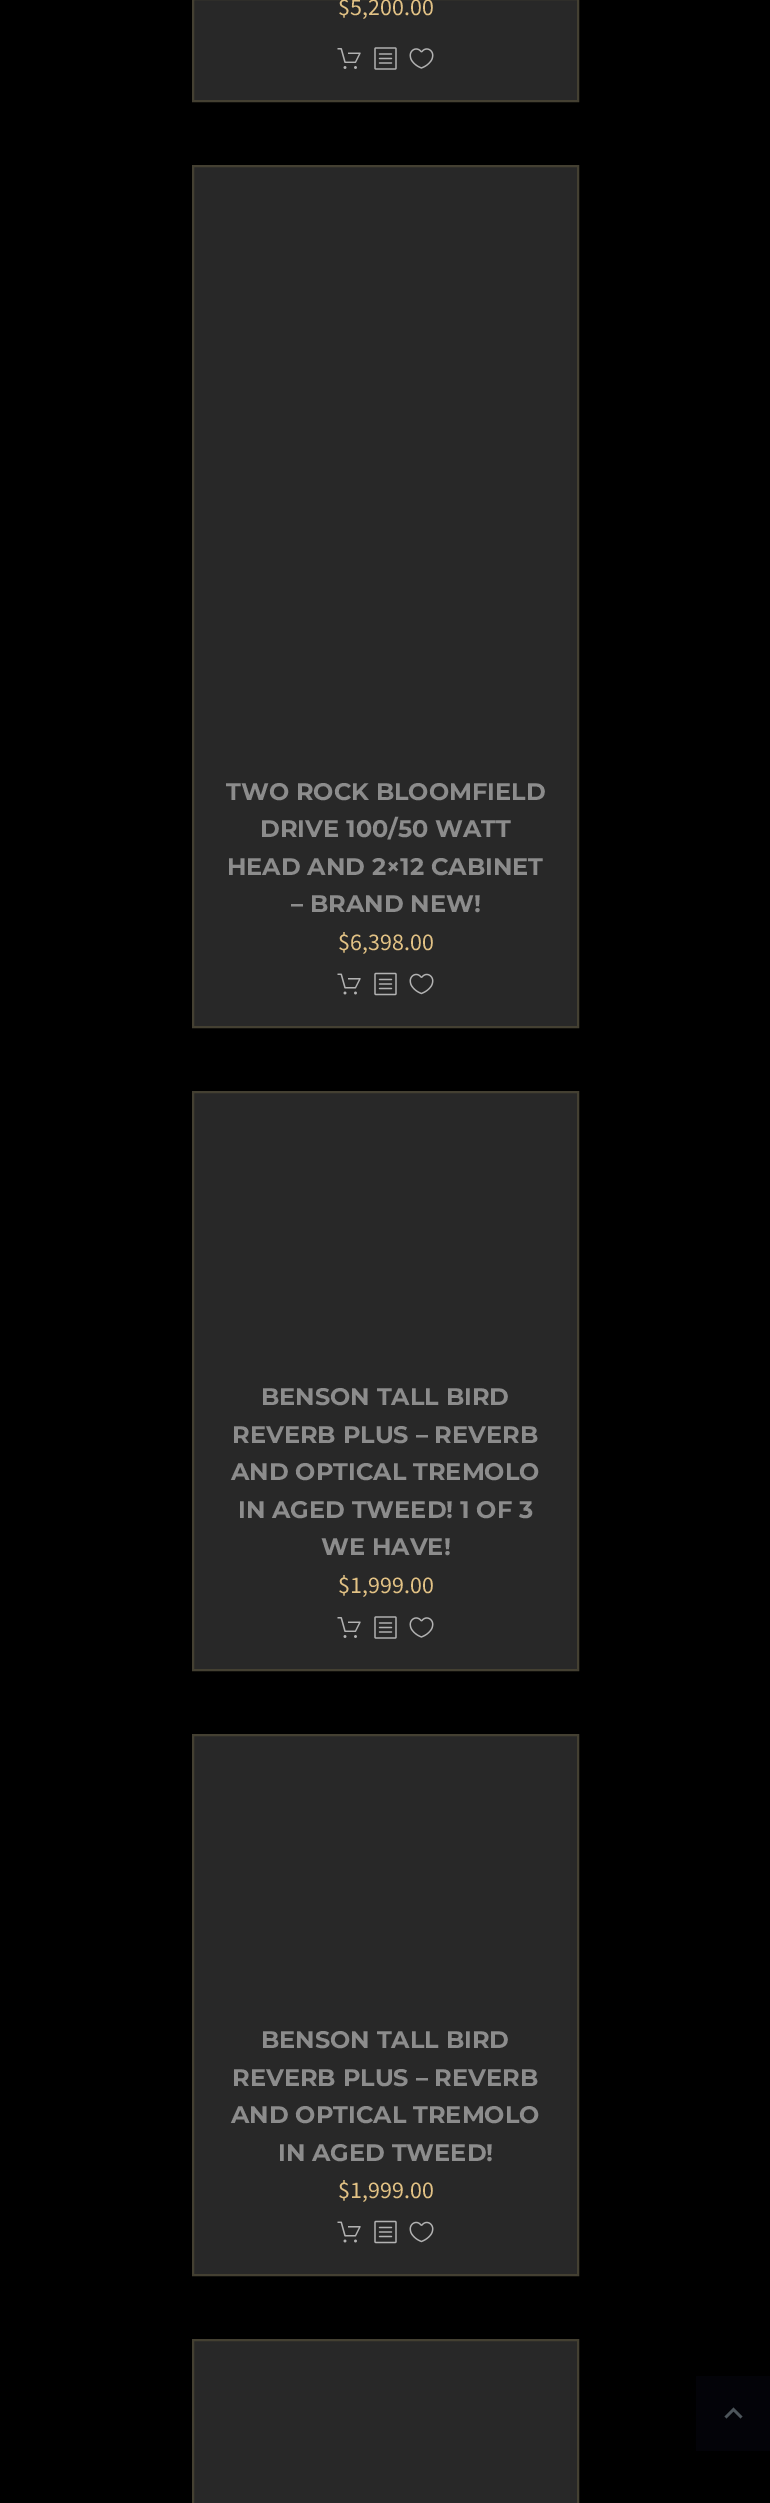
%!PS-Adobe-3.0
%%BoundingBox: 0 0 770 2503
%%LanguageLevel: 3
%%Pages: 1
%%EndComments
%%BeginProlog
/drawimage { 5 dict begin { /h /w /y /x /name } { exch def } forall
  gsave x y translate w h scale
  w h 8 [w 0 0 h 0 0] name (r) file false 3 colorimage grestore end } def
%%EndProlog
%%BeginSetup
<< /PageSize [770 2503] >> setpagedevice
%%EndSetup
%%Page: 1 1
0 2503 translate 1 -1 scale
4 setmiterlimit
0 setgray
0 0 770 2503 rectfill
0.157 setgray
newpath 193 -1 moveto 578 -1 lineto 578 101 lineto 193 101 lineto closepath gsave fill grestore
0.267 0.251 0.196 setrgbcolor
2 setlinewidth
stroke
(images/1.raw) 337 48 24 21 drawimage
(images/2.raw) 374 47 23 23 drawimage
(images/3.raw) 409 48 25 21 drawimage
0.157 setgray
newpath 193 166 moveto 578 166 lineto 578 1027 lineto 193 1027 lineto closepath gsave fill grestore
0.267 0.251 0.196 setrgbcolor
stroke
(images/4.raw) 337 973 24 22 drawimage
(images/5.raw) 374 972 23 24 drawimage
(images/6.raw) 409 973 25 22 drawimage
0.157 setgray
newpath 193 1092 moveto 578 1092 lineto 578 1670 lineto 193 1670 lineto closepath gsave fill grestore
0.267 0.251 0.196 setrgbcolor
stroke
(images/1.raw) 337 1617 24 21 drawimage
(images/2.raw) 374 1616 23 23 drawimage
(images/3.raw) 409 1617 25 21 drawimage
0.157 setgray
newpath 193 1735 moveto 578 1735 lineto 578 2275 lineto 193 2275 lineto closepath gsave fill grestore
0.267 0.251 0.196 setrgbcolor
stroke
(images/4.raw) 337 2221 24 22 drawimage
(images/5.raw) 374 2220 23 24 drawimage
(images/6.raw) 409 2221 25 22 drawimage
0.157 setgray
newpath 193 2340 moveto 578 2340 lineto 578 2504 lineto 193 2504 lineto closepath gsave fill grestore
0.267 0.251 0.196 setrgbcolor
stroke
0.012 0.012 0.031 setrgbcolor
696 2376 74 75 rectfill
0.302 0.333 0.357 setrgbcolor
newpath 726.5 2418.5 moveto 733.5 2411.5 lineto 740.5 2418.5 lineto 742.5 2416.5 lineto 733.5 2407.5 lineto 724.5 2416.5 lineto closepath fill
/SourceSansPro-Regular [24 0 0 -24 0 0] selectfont
0.886 0.761 0.522 setrgbcolor
338 15 moveto ($5,200.00) show
/Montserrat-Bold [24 0 0 -24 0 0] selectfont
0.549 setgray
226 800 moveto (TWO ROCK BLOOMFIELD) show
260 837 moveto (DRIVE 100/50 WATT) show
227 875 moveto (HEAD AND 2×12 CABINET) show
291 912 moveto (– BRAND NEW!) show
/SourceSansPro-Regular [24 0 0 -24 0 0] selectfont
0.886 0.761 0.522 setrgbcolor
338 950 moveto ($6,398.00) show
/Montserrat-Bold [24 0 0 -24 0 0] selectfont
0.549 setgray
261 1405 moveto (BENSON TALL BIRD) show
232 1443 moveto (REVERB PLUS – REVERB) show
231 1480 moveto (AND OPTICAL TREMOLO) show
238 1518 moveto (IN AGED TWEED! 1 OF 3) show
321 1555 moveto (WE HAVE!) show
/SourceSansPro-Regular [24 0 0 -24 0 0] selectfont
0.886 0.761 0.522 setrgbcolor
338 1593 moveto ($1,999.00) show
/Montserrat-Bold [24 0 0 -24 0 0] selectfont
0.549 setgray
261 2048 moveto (BENSON TALL BIRD) show
232 2086 moveto (REVERB PLUS – REVERB) show
231 2123 moveto (AND OPTICAL TREMOLO) show
278 2161 moveto (IN AGED TWEED!) show
/SourceSansPro-Regular [24 0 0 -24 0 0] selectfont
0.886 0.761 0.522 setrgbcolor
338 2198 moveto ($1,999.00) show
showpage
%%EOF
